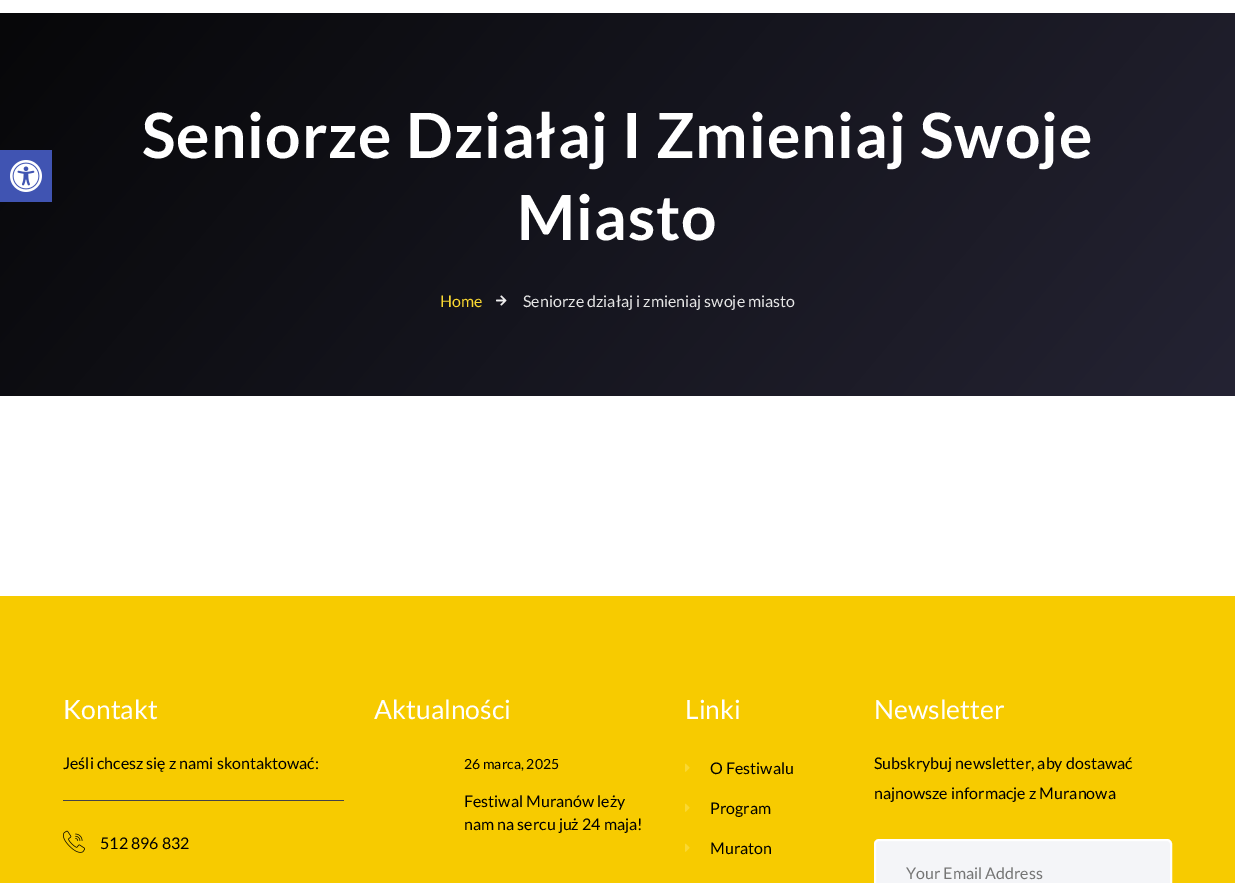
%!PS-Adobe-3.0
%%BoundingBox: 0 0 1235 883
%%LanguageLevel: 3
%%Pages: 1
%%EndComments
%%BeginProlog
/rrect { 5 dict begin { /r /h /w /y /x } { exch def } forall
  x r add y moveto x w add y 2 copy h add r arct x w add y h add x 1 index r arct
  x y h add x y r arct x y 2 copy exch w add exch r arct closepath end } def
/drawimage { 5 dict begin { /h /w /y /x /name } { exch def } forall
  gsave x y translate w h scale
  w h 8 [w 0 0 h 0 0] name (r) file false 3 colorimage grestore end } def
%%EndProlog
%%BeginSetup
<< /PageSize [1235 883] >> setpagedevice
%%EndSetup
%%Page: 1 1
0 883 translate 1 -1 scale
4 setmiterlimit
1 setgray
0 0 1235 883 rectfill
gsave newpath 0 13 moveto 1235 13 lineto 1235 396 lineto 0 396 lineto closepath clip newpath
<< /ShadingType 2 /ColorSpace /DeviceRGB /Coords [1074 588 161 -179] /Extend [true true] /Function << /FunctionType 2 /Domain [0 1] /C0 [0.141 0.137 0.2] /C1 [0.027 0.027 0.035] /N 1 >> >> shfill grestore
0.251 0.329 0.698 setrgbcolor
0 150 52 52 rectfill
(images/1.raw) 10 160 32 32 drawimage
(images/2.raw) 496 295 11 11 drawimage
0.969 0.796 0 setrgbcolor
0 596 1235 287 rectfill
0.263 0.263 0.282 setrgbcolor
63 800 281 1 rectfill
(images/3.raw) 63 830 22 23 drawimage
(images/4.raw) 685 763 5 9 drawimage
(images/4.raw) 685 803 5 9 drawimage
(images/4.raw) 685 843 5 9 drawimage
0.957 0.961 0.973 setrgbcolor
875 840 296 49 4 rrect gsave fill grestore
1 setgray
2 setlinewidth
stroke
/Lato-Bold [62.4 0 0 -62.4 0 0] selectfont
142 158 moveto 1 0 (Seniorze Działaj I Zmieniaj Swoje) ashow
517 240 moveto 1 0 (Miasto) ashow
/Lato-Regular [16 0 0 -16 0 0] selectfont
0.98 0.847 0.196 setrgbcolor
440 307 moveto (Home) show
0.902 setgray
523 307 moveto (Seniorze działaj i zmieniaj swoje miasto) show
/Lato-Regular [26.5 0 0 -26.5 0 0] selectfont
1 setgray
63 719 moveto (Kontakt) show
/Lato-Regular [16 0 0 -16 0 0] selectfont
0 setgray
63 769 moveto (Jeśli chcesz się z nami skontaktować:) show
100 849 moveto (512 896 832) show
/Lato-Regular [26.5 0 0 -26.5 0 0] selectfont
1 setgray
374 719 moveto (Aktualności) show
/Lato-Regular [14 0 0 -14 0 0] selectfont
0 setgray
464 769 moveto (26 marca, 2025) show
/Lato-Regular [16 0 0 -16 0 0] selectfont
464 807 moveto (Festiwal Muranów leży) show
464 830 moveto (nam na sercu już 24 maja!) show
/Lato-Regular [26.5 0 0 -26.5 0 0] selectfont
1 setgray
685 719 moveto (Linki) show
/Lato-Regular [16 0 0 -16 0 0] selectfont
0 setgray
710 774 moveto (O Festiwalu) show
710 814 moveto (Program) show
710 854 moveto (Muraton) show
/Lato-Regular [26.5 0 0 -26.5 0 0] selectfont
1 setgray
874 719 moveto (Newsletter) show
/Lato-Regular [16 0 0 -16 0 0] selectfont
0 setgray
874 769 moveto (Subskrybuj newsletter, aby dostawać) show
874 799 moveto (najnowsze informacje z Muranowa) show
0.459 setgray
906 879 moveto (Your Email Address) show
showpage
%%EOF
